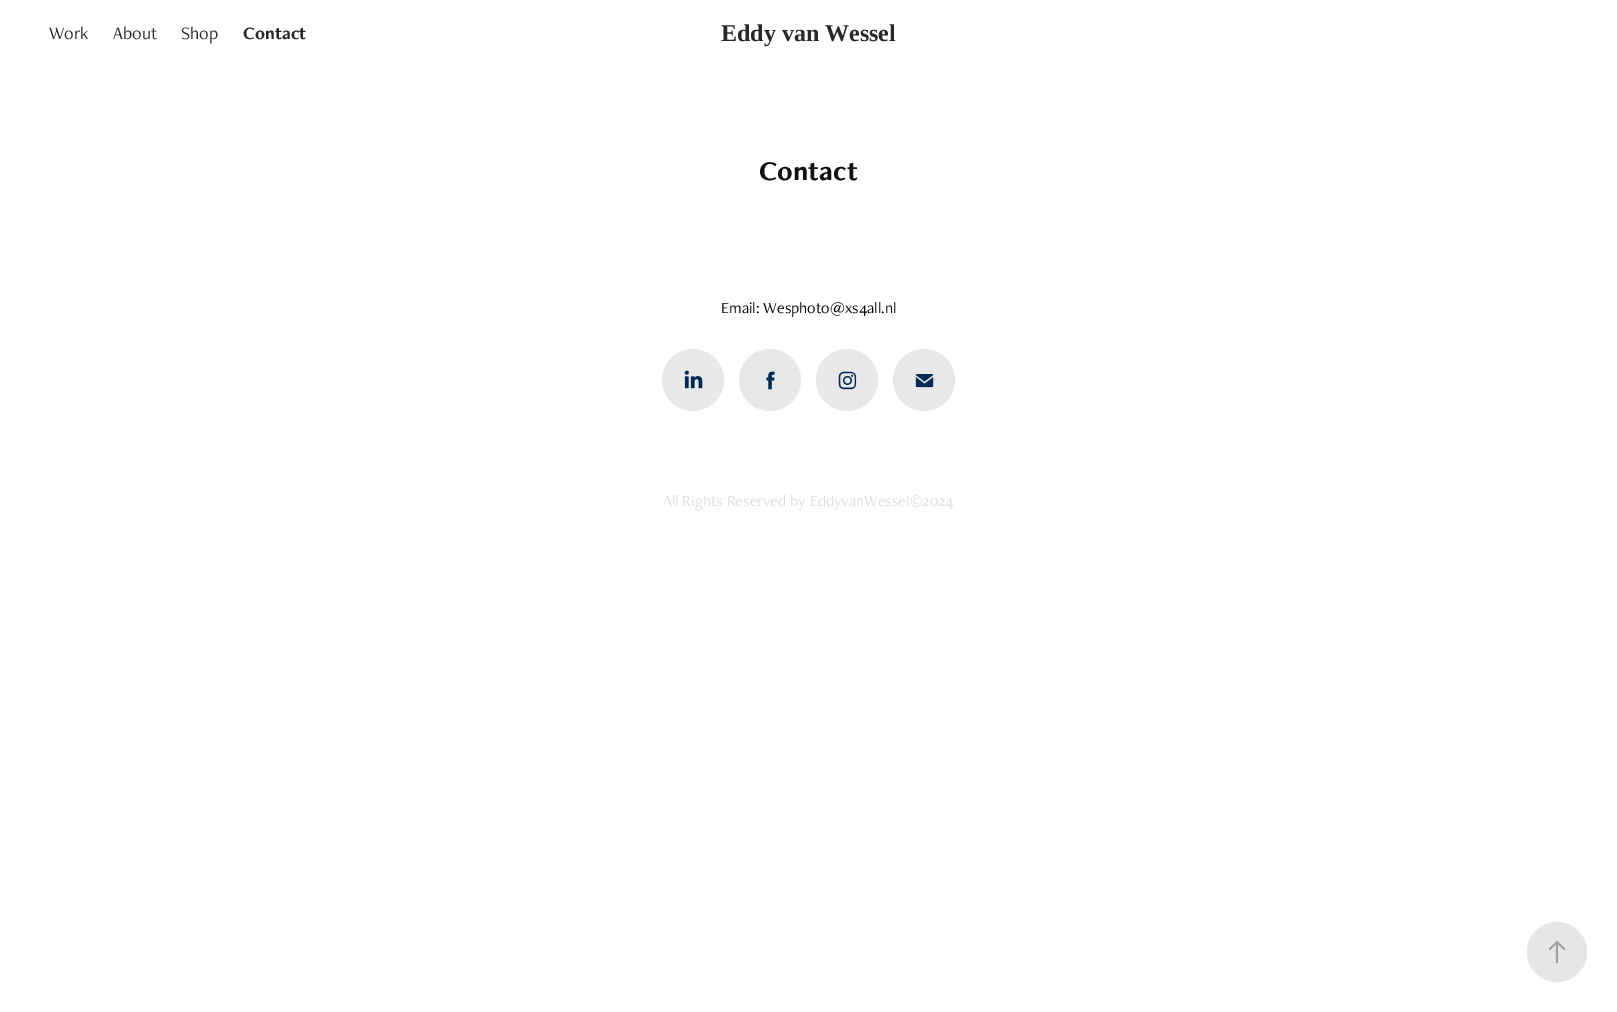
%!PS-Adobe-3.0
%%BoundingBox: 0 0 1617 1012
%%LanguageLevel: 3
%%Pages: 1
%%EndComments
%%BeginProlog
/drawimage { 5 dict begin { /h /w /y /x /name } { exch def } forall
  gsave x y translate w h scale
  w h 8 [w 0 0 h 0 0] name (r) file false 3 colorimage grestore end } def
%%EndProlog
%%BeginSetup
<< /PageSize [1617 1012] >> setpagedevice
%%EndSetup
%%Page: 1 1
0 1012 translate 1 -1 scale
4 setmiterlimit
1 setgray
0 0 1617 1012 rectfill
0.91 setgray
newpath 693 380 31 0 360 arc closepath fill
(images/1.raw) 684 370 19 19 drawimage
newpath 770 380 31 0 360 arc closepath fill
(images/2.raw) 766 371 9 19 drawimage
newpath 847 380 31 0 360 arc closepath fill
(images/3.raw) 838 371 19 19 drawimage
newpath 924 380 31 0 360 arc closepath fill
(images/4.raw) 915 374 19 14 drawimage
0.902 setgray
newpath 1557 952 30 0 360 arc closepath fill
(images/5.raw) 1548 941 18 23 drawimage
/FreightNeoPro-Regular [18 0 0 -18 0 0] selectfont
0.157 setgray
49 39 moveto (Work) show
113 39 moveto (About) show
181 39 moveto (Shop) show
/FreightNeoPro-Bold [18 0 0 -18 0 0] selectfont
243 39 moveto (Contact) show
/LiberationSerif-Bold [24 0 0 -24 0 0] selectfont
721 41 moveto (Eddy van Wessel) show
/FreightNeoPro-Bold [28 0 0 -28 0 0] selectfont
0.067 setgray
759 180 moveto (Contact) show
/FreightNeoPro-Regular [16 0 0 -16 0 0] selectfont
0 setgray
721 313 moveto (Email: Wesphoto@xs4all.nl) show
0.867 setgray
663 506 moveto (All Rights Reserved by EddyvanWessel©2024) show
showpage
%%EOF
